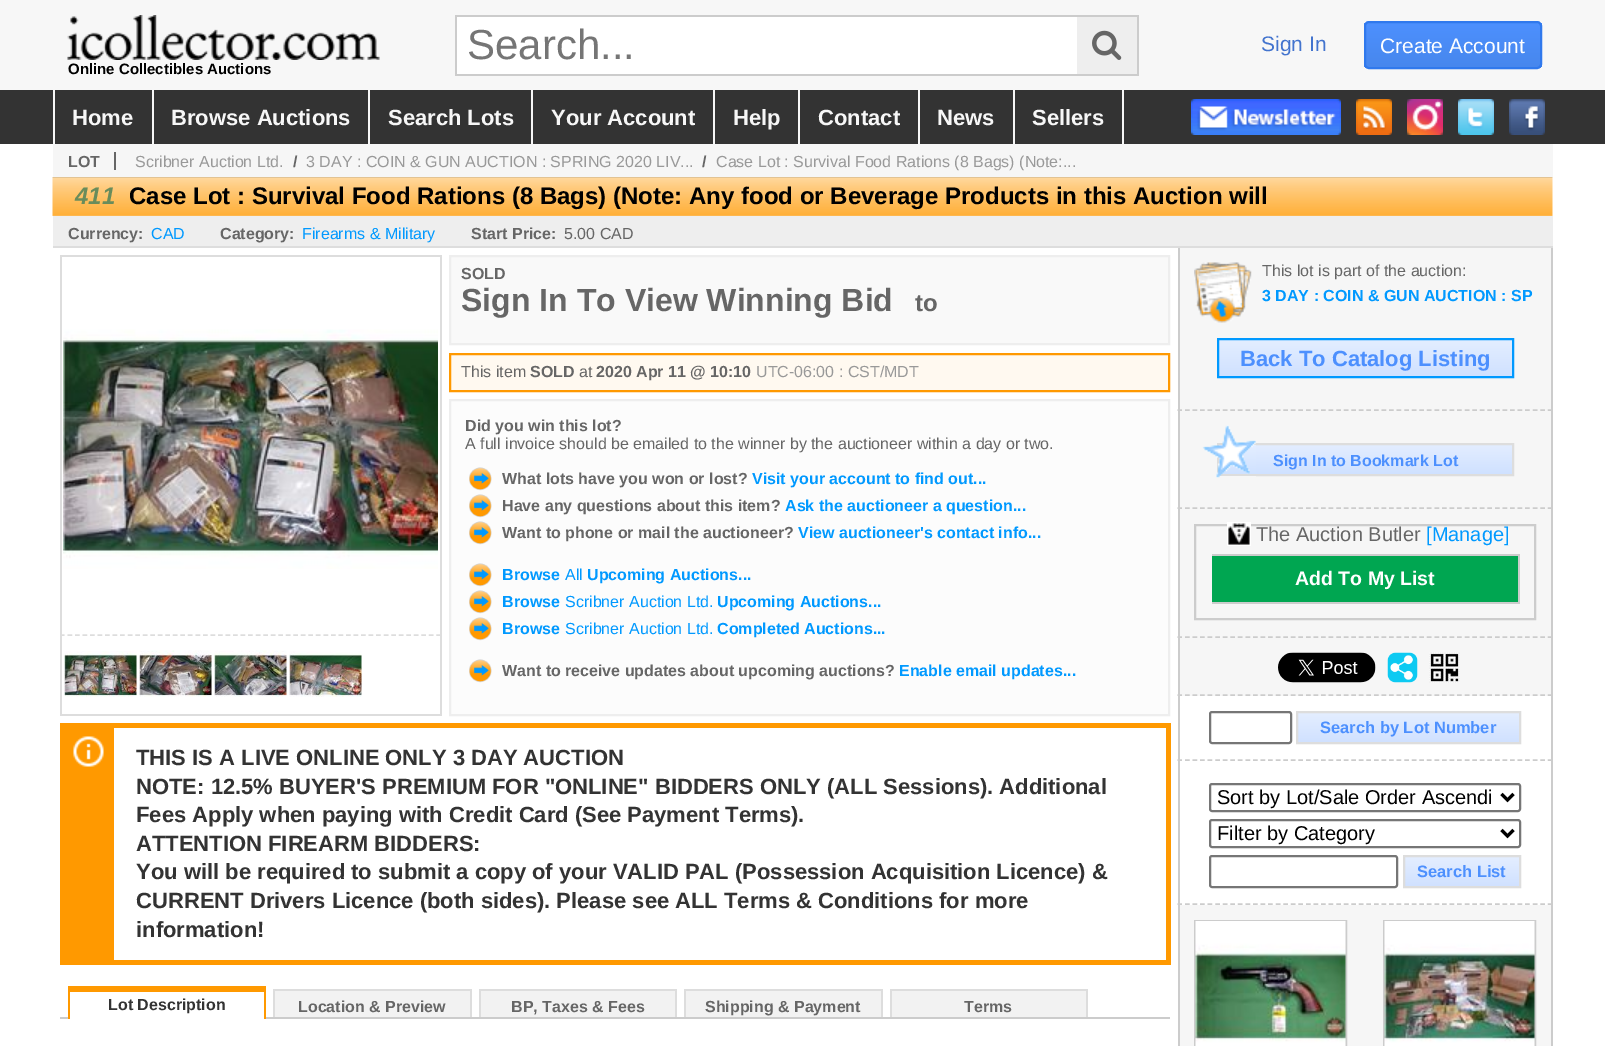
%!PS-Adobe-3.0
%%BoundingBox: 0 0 1605 1046
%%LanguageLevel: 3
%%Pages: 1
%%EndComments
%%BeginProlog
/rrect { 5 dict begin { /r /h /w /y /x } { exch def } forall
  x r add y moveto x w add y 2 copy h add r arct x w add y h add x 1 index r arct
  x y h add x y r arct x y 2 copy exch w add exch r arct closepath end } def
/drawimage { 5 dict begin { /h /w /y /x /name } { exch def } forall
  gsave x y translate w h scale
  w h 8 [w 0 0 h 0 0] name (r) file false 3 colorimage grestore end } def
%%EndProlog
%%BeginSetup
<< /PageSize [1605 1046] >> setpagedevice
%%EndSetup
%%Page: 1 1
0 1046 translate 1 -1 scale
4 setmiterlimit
1 setgray
0 0 1605 1046 rectfill
0.969 setgray
0 0 1605 90 rectfill
1 setgray
457 17 620 57 rectfill
0.8 setgray
455 15 684 2 rectfill
455 74 622 2 rectfill
455 15 2 60 rectfill
0.933 setgray
1077 17 60 57 rectfill
0.8 setgray
1137 15 2 60 rectfill
1077 74 62 2 rectfill
(images/1.raw) 1092 30 30 30 drawimage
gsave
1364 21 178 48 5 rrect clip newpath
gsave newpath 1364 23 moveto 1542 23 lineto 1542 68 lineto 1364 68 lineto closepath clip newpath
<< /ShadingType 2 /ColorSpace /DeviceRGB /Coords [1453 22 1453 68] /Extend [true true] /Function << /FunctionType 2 /Domain [0 1] /C0 [0.302 0.565 0.996] /C1 [0.278 0.529 0.929] /N 1 >> >> shfill grestore
grestore
0.188 0.475 0.929 setrgbcolor
2 setlinewidth
1365 22 176 46 4 rrect stroke
(images/2.raw) 67 15 313 45 drawimage
0.2 setgray
0 90 1605 54 rectfill
0.969 setgray
53 90 2 54 rectfill
152 90 2 54 rectfill
368 90 2 54 rectfill
531 90 2 54 rectfill
713 90 2 54 rectfill
798 90 2 54 rectfill
918 90 2 54 rectfill
1122 90 2 54 rectfill
1013 90 2 54 rectfill
(images/3.raw) 1191 99 150 36 drawimage
(images/4.raw) 1356 99 36 36 drawimage
(images/5.raw) 1407 99 36 36 drawimage
(images/6.raw) 1458 99 36 36 drawimage
(images/7.raw) 1509 99 36 36 drawimage
0.965 setgray
53 144 1500 33 rectfill
0.4 setgray
114 152 2 18 rectfill
(images/8.raw) 52 177 1501 39 drawimage
0.933 setgray
53 216 1500 30 rectfill
0.867 setgray
53 246 1500 2 rectfill
60 255 381 2 rectfill
440 255 2 380 rectfill
60 255 2 380 rectfill
(images/9.raw) 63 329 375 240 drawimage
1.5 setlinewidth
[4.5 3.03] 0 setdash
newpath 60 635 moveto 441 635 lineto stroke
440 635 2 81 rectfill
60 714 381 2 rectfill
60 635 2 81 rectfill
(images/10.raw) 64 651 73 46 drawimage
(images/11.raw) 139 650 73 47 drawimage
(images/12.raw) 214 650 73 47 drawimage
(images/13.raw) 289 651 73 46 drawimage
0.976 setgray
newpath 450 256 moveto 1169 256 lineto 1169 344 lineto 450 344 lineto closepath gsave fill grestore
0.933 setgray
2 setlinewidth
[] 0 setdash
stroke
1 0.976 0.941 setrgbcolor
newpath 450 354 moveto 1169 354 lineto 1169 391 lineto 450 391 lineto closepath gsave fill grestore
1 0.6 0 setrgbcolor
stroke
0.988 setgray
newpath 450 400 moveto 1169 400 lineto 1169 715 lineto 450 715 lineto closepath gsave fill grestore
0.933 setgray
stroke
(images/14.raw) 469 467 23 24 drawimage
(images/14.raw) 469 494 23 24 drawimage
(images/14.raw) 469 521 23 24 drawimage
(images/14.raw) 469 563 23 24 drawimage
(images/14.raw) 469 590 23 24 drawimage
(images/14.raw) 469 617 23 24 drawimage
(images/14.raw) 469 659 23 24 drawimage
1 0.6 0 setrgbcolor
114 723 1056 5 rectfill
1166 723 5 242 rectfill
114 960 1056 5 rectfill
60 723 54 242 rectfill
(images/15.raw) 73 736 31 31 drawimage
0.8 setgray
60 1017 1110 2 rectfill
1 setgray
70 1017 194 2 rectfill
1 0.6 0 setrgbcolor
68 986 198 6 rectfill
264 986 2 33 rectfill
68 986 2 33 rectfill
0.949 setgray
275 991 195 26 rectfill
0.867 setgray
273 989 198 2 rectfill
470 989 2 28 rectfill
273 989 2 28 rectfill
0.949 setgray
481 991 194 26 rectfill
0.867 setgray
479 989 198 2 rectfill
675 989 2 28 rectfill
479 989 2 28 rectfill
0.949 setgray
686 991 195 26 rectfill
0.867 setgray
684 989 198 2 rectfill
881 989 2 28 rectfill
684 989 2 28 rectfill
0.949 setgray
892 991 194 26 rectfill
0.867 setgray
890 989 198 2 rectfill
1086 989 2 28 rectfill
890 989 2 28 rectfill
0.965 setgray
1180 248 371 448 rectfill
0.8 setgray
1551 248 2 798 rectfill
1.5 setlinewidth
[4.5 3.06] 0 setdash
newpath 1177.5 410 moveto 1552.5 410 lineto stroke
1178 248 2 163 rectfill
(images/16.raw) 1194 262 58 61 drawimage
gsave newpath 1219 340 moveto 1512 340 lineto 1512 376 lineto 1219 376 lineto closepath clip newpath
<< /ShadingType 2 /ColorSpace /DeviceRGB /Coords [1365 339 1365 377] /Extend [true true] /Function << /FunctionType 2 /Domain [0 1] /C0 [0.894 0.933 1] /C1 [0.812 0.882 1] /N 1 >> >> shfill grestore
0 0.6 1 setrgbcolor
2 setlinewidth
[] 0 setdash
1218 339 295 38 rectstroke
0.8 setgray
1.5 setlinewidth
[4.5 3.06] 0 setdash
newpath 1177.5 508 moveto 1552.5 508 lineto stroke
1178 411 2 98 rectfill
gsave newpath 1219 445 moveto 1512 445 lineto 1512 474 lineto 1219 474 lineto closepath clip newpath
<< /ShadingType 2 /ColorSpace /DeviceRGB /Coords [1365 444 1365 474] /Extend [true true] /Function << /FunctionType 2 /Domain [0 1] /C0 [0.894 0.933 1] /C1 [0.812 0.882 1] /N 1 >> >> shfill grestore
0.867 setgray
2 setlinewidth
[] 0 setdash
1218 444 295 31 rectstroke
(images/17.raw) 1202 425 54 53 drawimage
0.8 setgray
1.5 setlinewidth
[4.5 3.06] 0 setdash
newpath 1177.5 637 moveto 1552.5 637 lineto stroke
1178 509 2 129 rectfill
2 setlinewidth
[] 0 setdash
1195 525 340 94 rectstroke
(images/18.raw) 1227 522 24 24 drawimage
0 0.651 0.318 setrgbcolor
1212 556 306 46 rectfill
0.8 setgray
1212 554 308 2 rectfill
1518 554 2 49 rectfill
1212 602 308 2 rectfill
1.5 setlinewidth
[4.5 3.06] 0 setdash
newpath 1177.5 695 moveto 1552.5 695 lineto stroke
1178 638 2 58 rectfill
(images/19.raw) 1278 652 98 31 drawimage
(images/20.raw) 1387 652 31 31 drawimage
(images/21.raw) 1429 652 31 31 drawimage
newpath 1177.5 760 moveto 1552.5 760 lineto stroke
1178 696 2 65 rectfill
0.463 setgray
2 setlinewidth
[] 0 setdash
1210 712 81 31 2 rrect stroke
gsave newpath 1298 713 moveto 1519 713 lineto 1519 742 lineto 1298 742 lineto closepath clip newpath
<< /ShadingType 2 /ColorSpace /DeviceRGB /Coords [1409 713 1409 743] /Extend [true true] /Function << /FunctionType 2 /Domain [0 1] /C0 [0.894 0.933 1] /C1 [0.812 0.882 1] /N 1 >> >> shfill grestore
0.867 setgray
1297 712 223 31 rectstroke
0.8 setgray
1.5 setlinewidth
[4.5 3.06] 0 setdash
newpath 1177.5 904 moveto 1552.5 904 lineto stroke
1178 761 2 285 rectfill
0.463 setgray
2 setlinewidth
[] 0 setdash
1210 784 310 27 2 rrect stroke
0 setgray
3 setlinewidth
newpath 1501.5 794 moveto 1507.5 800 lineto 1513.5 794 lineto stroke
0.463 setgray
2 setlinewidth
1210 820 310 27 2 rrect stroke
0 setgray
3 setlinewidth
newpath 1501.5 830 moveto 1507.5 836 lineto 1513.5 830 lineto stroke
0.463 setgray
2 setlinewidth
1210 856 187 31 2 rrect stroke
gsave newpath 1405 857 moveto 1519 857 lineto 1519 886 lineto 1405 886 lineto closepath clip newpath
<< /ShadingType 2 /ColorSpace /DeviceRGB /Coords [1462 857 1462 887] /Extend [true true] /Function << /FunctionType 2 /Domain [0 1] /C0 [0.894 0.933 1] /C1 [0.812 0.882 1] /N 1 >> >> shfill grestore
0.867 setgray
1404 856 116 31 rectstroke
0.965 setgray
1180 905 371 141 rectfill
0.8 setgray
1195 921 151 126 rectstroke
(images/22.raw) 1195 921 151 125 drawimage
1384 921 151 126 rectstroke
(images/23.raw) 1384 921 151 125 drawimage
/LiberationSans-Regular [42 0 0 -42 0 0] selectfont
0.459 setgray
467 59 moveto (Search...) show
/LiberationSans-Regular [21 0 0 -21 0 0] selectfont
0.263 0.455 0.808 setrgbcolor
1261 51 moveto (Sign In) show
1 setgray
1380 53 moveto (Create Account) show
/LiberationSans-Bold [15 0 0 -15 0 0] selectfont
0 setgray
68 74 moveto (Online Collectibles Auctions) show
/LiberationSans-Bold [22 0 0 -22 0 0] selectfont
0.969 setgray
72 125 moveto (Home) show
171 125 moveto (Browse Auctions) show
388 125 moveto (Search Lots) show
551 125 moveto (Your Account) show
733 125 moveto (Help) show
818 125 moveto (Contact) show
937 125 moveto (News) show
1032 125 moveto (Sellers) show
/LiberationSans-Bold [16 0 0 -16 0 0] selectfont
0.4 setgray
68 167 moveto (LOT) show
/LiberationSans-Regular [16 0 0 -16 0 0] selectfont
0.6 setgray
135 167 moveto (Scribner Auction Ltd.) show
/LiberationSans-Bold [16 0 0 -16 0 0] selectfont
0.4 setgray
293 167 moveto (/) show
/LiberationSans-Regular [16 0 0 -16 0 0] selectfont
0.6 setgray
306 167 moveto (3 DAY : COIN & GUN AUCTION : SPRING 2020 LIV...) show
/LiberationSans-Bold [16 0 0 -16 0 0] selectfont
0.4 setgray
702 167 moveto (/) show
/LiberationSans-Regular [16 0 0 -16 0 0] selectfont
0.6 setgray
716 167 moveto (Case Lot : Survival Food Rations \(8 Bags\) \(Note:...) show
/LiberationSans-BoldItalic [24 0 0 -24 0 0] selectfont
0.412 0.549 0.357 setrgbcolor
75 204 moveto (411) show
/LiberationSans-Bold [24 0 0 -24 0 0] selectfont
0 setgray
129 204 moveto (Case Lot : Survival Food Rations \(8 Bags\) \(Note: Any food or Beverage Products in this Auction will) show
/LiberationSans-Bold [16 0 0 -16 0 0] selectfont
0.4 setgray
68 239 moveto (Currency:) show
/LiberationSans-Regular [16 0 0 -16 0 0] selectfont
0 0.6 1 setrgbcolor
151 239 moveto (CAD) show
/LiberationSans-Bold [16 0 0 -16 0 0] selectfont
0.4 setgray
220 239 moveto (Category:) show
/LiberationSans-Regular [16 0 0 -16 0 0] selectfont
0 0.6 1 setrgbcolor
302 239 moveto (Firearms & Military) show
/LiberationSans-Bold [16 0 0 -16 0 0] selectfont
0.4 setgray
471 239 moveto (Start Price:) show
/LiberationSans-Regular [16 0 0 -16 0 0] selectfont
564 239 moveto (5.00 CAD) show
/LiberationSans-Bold [16 0 0 -16 0 0] selectfont
461 279 moveto (SOLD) show
/LiberationSans-Bold [32 0 0 -32 0 0] selectfont
461 311 moveto (Sign In To View Winning Bid) show
/LiberationSans-Bold [24 0 0 -24 0 0] selectfont
915 311 moveto (to) show
/LiberationSans-Regular [16 0 0 -16 0 0] selectfont
461 377 moveto (This item) show
/LiberationSans-Bold [16 0 0 -16 0 0] selectfont
530 377 moveto (SOLD) show
/LiberationSans-Regular [16 0 0 -16 0 0] selectfont
579 377 moveto (at) show
/LiberationSans-Bold [16 0 0 -16 0 0] selectfont
596 377 moveto (2020 Apr 11 @ 10:10) show
/LiberationSans-Regular [16 0 0 -16 0 0] selectfont
0.6 setgray
756 377 moveto (UTC-06:00 : CST/MDT) show
/LiberationSans-Bold [16 0 0 -16 0 0] selectfont
0.4 setgray
465 431 moveto (Did you win this lot?) show
/LiberationSans-Regular [16 0 0 -16 0 0] selectfont
465 449 moveto (A full invoice should be emailed to the winner by the auctioneer within a day or two.) show
/LiberationSans-Bold [16 0 0 -16 0 0] selectfont
502 484 moveto (What lots have you won or lost?) show
0 0.6 1 setrgbcolor
752 484 moveto (Visit your account to find out...) show
0.4 setgray
502 511 moveto (Have any questions about this item?) show
0 0.6 1 setrgbcolor
785 511 moveto (Ask the auctioneer a question...) show
0.4 setgray
502 538 moveto (Want to phone or mail the auctioneer?) show
0 0.6 1 setrgbcolor
798 538 moveto (View auctioneer's contact info...) show
502 580 moveto (Browse) show
/LiberationSans-Regular [16 0 0 -16 0 0] selectfont
565 580 moveto (All) show
/LiberationSans-Bold [16 0 0 -16 0 0] selectfont
587 580 moveto (Upcoming Auctions...) show
502 607 moveto (Browse) show
/LiberationSans-Regular [16 0 0 -16 0 0] selectfont
565 607 moveto (Scribner Auction Ltd.) show
/LiberationSans-Bold [16 0 0 -16 0 0] selectfont
717 607 moveto (Upcoming Auctions...) show
502 634 moveto (Browse) show
/LiberationSans-Regular [16 0 0 -16 0 0] selectfont
565 634 moveto (Scribner Auction Ltd.) show
/LiberationSans-Bold [16 0 0 -16 0 0] selectfont
717 634 moveto (Completed Auctions...) show
0.4 setgray
502 676 moveto (Want to receive updates about upcoming auctions?) show
0 0.6 1 setrgbcolor
899 676 moveto (Enable email updates...) show
/LiberationSans-Bold [22 0 0 -22 0 0] selectfont
0.2 setgray
136 765 moveto (THIS IS A LIVE ONLINE ONLY 3 DAY AUCTION) show
136 794 moveto (NOTE: 12.5% BUYER'S PREMIUM FOR "ONLINE" BIDDERS ONLY \(ALL Sessions\). Additional) show
136 822 moveto (Fees Apply when paying with Credit Card \(See Payment Terms\).) show
136 851 moveto (ATTENTION FIREARM BIDDERS:) show
136 879 moveto (You will be required to submit a copy of your VALID PAL \(Possession Acquisition Licence\) &) show
136 908 moveto (CURRENT Drivers Licence \(both sides\). Please see ALL Terms & Conditions for more) show
136 937 moveto (information!) show
/LiberationSans-Bold [16 0 0 -16 0 0] selectfont
108 1010 moveto (Lot Description) show
0.4 setgray
298 1012 moveto (Location & Preview) show
511 1012 moveto (BP, Taxes & Fees) show
705 1012 moveto (Shipping & Payment) show
964 1012 moveto (Terms) show
/LiberationSans-Regular [16 0 0 -16 0 0] selectfont
1262 276 moveto (This lot is part of the auction:) show
/LiberationSans-Bold [16 0 0 -16 0 0] selectfont
0 0.6 1 setrgbcolor
1262 301 moveto (3 DAY : COIN & GUN AUCTION : SP) show
/LiberationSans-Bold [22 0 0 -22 0 0] selectfont
0.302 0.565 0.996 setrgbcolor
1240 366 moveto (Back To Catalog Listing) show
/LiberationSans-Bold [16 0 0 -16 0 0] selectfont
1273 466 moveto (Sign In to Bookmark Lot) show
/LiberationSans-Regular [20 0 0 -20 0 0] selectfont
0.4 setgray
1256 541 moveto (The Auction Butler) show
0 0.6 1 setrgbcolor
1426 541 moveto ([Manage]) show
/LiberationSans-Bold [19.5 0 0 -19.5 0 0] selectfont
1 setgray
1295 585 moveto (Add To My List) show
/LiberationSans-Bold [16.5 0 0 -16.5 0 0] selectfont
0.302 0.565 0.996 setrgbcolor
1320 733 moveto (Search by Lot Number) show
/LiberationSans-Regular [20 0 0 -20 0 0] selectfont
0 setgray
1217 804 moveto (Sort by Lot/Sale Order Ascendi) show
1217 840 moveto (Filter by Category) show
/LiberationSans-Bold [16.5 0 0 -16.5 0 0] selectfont
0.302 0.565 0.996 setrgbcolor
1417 877 moveto (Search List) show
showpage
%%EOF
